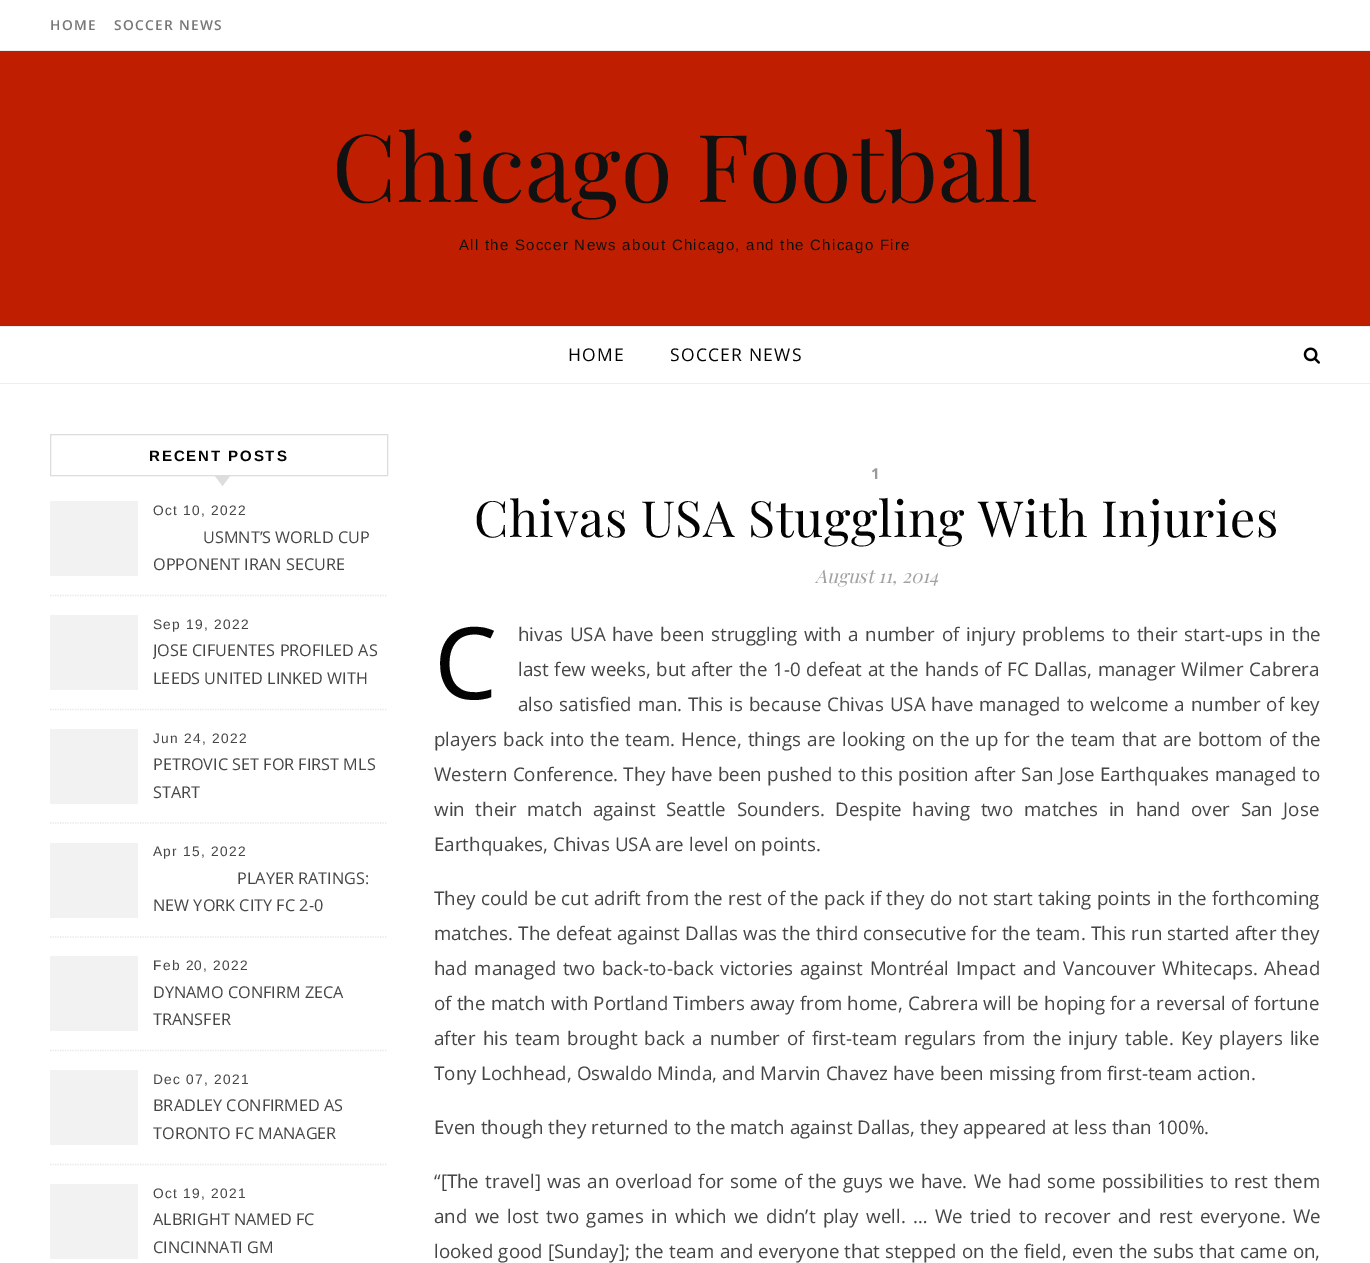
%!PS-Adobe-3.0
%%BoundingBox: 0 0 1370 1263
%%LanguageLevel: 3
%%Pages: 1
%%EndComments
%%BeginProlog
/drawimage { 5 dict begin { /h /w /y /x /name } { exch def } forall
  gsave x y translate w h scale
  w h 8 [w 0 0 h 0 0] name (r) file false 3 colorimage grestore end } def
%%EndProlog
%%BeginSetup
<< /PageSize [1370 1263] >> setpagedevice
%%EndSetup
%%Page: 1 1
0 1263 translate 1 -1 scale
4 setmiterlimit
1 setgray
0 0 1370 1263 rectfill
0.933 setgray
0 50 1370 1 rectfill
0.749 0.122 0 setrgbcolor
0 51 1370 275 rectfill
0.933 setgray
0 326 1370 1 rectfill
0 383 1370 1 rectfill
(images/1.raw) 1303 347 17 17 drawimage
0.867 setgray
50.5 434.5 337 41 rectstroke
newpath 215 476 moveto 230 476 lineto 222.5 486 lineto closepath fill
0.91 setgray
1.2 setlinewidth
[1.25 1.25] 0 setdash
newpath 50 595.5 moveto 387.5 595.5 lineto stroke
0.949 setgray
50 501 88 75 rectfill
0.91 setgray
newpath 50 709.5 moveto 387.5 709.5 lineto stroke
0.949 setgray
50 615 88 75 rectfill
0.91 setgray
newpath 50 823 moveto 387.5 823 lineto stroke
0.949 setgray
50 729 88 75 rectfill
0.91 setgray
newpath 50 937 moveto 387.5 937 lineto stroke
0.949 setgray
50 843 88 75 rectfill
0.91 setgray
newpath 50 1050.5 moveto 387.5 1050.5 lineto stroke
0.949 setgray
50 956 88 75 rectfill
0.91 setgray
newpath 50 1164.5 moveto 387.5 1164.5 lineto stroke
0.949 setgray
50 1070 88 75 rectfill
50 1184 88 75 rectfill
/OpenSans-SemiBold [13.75 0 0 -13.75 0 0] selectfont
0.467 setgray
50 30 moveto 1.25 0 (HOME) ashow
114 30 moveto 1.25 0 (SOCCER NEWS) ashow
/PlayfairDisplay-Regular [93.75 0 0 -93.75 0 0] selectfont
0.067 setgray
332 202 moveto (Chicago Football) show
/LiberationSans-Regular [15 0 0 -15 0 0] selectfont
459 250 moveto 1.25 0 (All the Soccer News about Chicago, and the Chicago Fire) ashow
/OpenSans-Regular [17.5 0 0 -17.5 0 0] selectfont
0.012 setgray
568 361 moveto 1.25 0 (HOME) ashow
670 361 moveto 1.25 0 (SOCCER NEWS) ashow
/LiberationSans-Bold [15 0 0 -15 0 0] selectfont
149 461 moveto 1.9 0 (RECENT POSTS) ashow
/LiberationSans-Regular [13.75 0 0 -13.75 0 0] selectfont
0.275 setgray
153 515 moveto 1.25 0 (Oct 10, 2022) ashow
/OpenSans-Regular [16.25 0 0 -16.25 0 0] selectfont
203 543 moveto (USMNT’S WORLD CUP) show
153 570 moveto (OPPONENT IRAN SECURE) show
/LiberationSans-Regular [13.75 0 0 -13.75 0 0] selectfont
153 629 moveto 1.25 0 (Sep 19, 2022) ashow
gsave
153 636 231 58 rectclip
/OpenSans-Regular [16.25 0 0 -16.25 0 0] selectfont
153 656 moveto (JOSE CIFUENTES PROFILED AS) show
grestore
/OpenSans-Regular [16.25 0 0 -16.25 0 0] selectfont
153 684 moveto (LEEDS UNITED LINKED WITH) show
/LiberationSans-Regular [13.75 0 0 -13.75 0 0] selectfont
153 743 moveto 1.25 0 (Jun 24, 2022) ashow
/OpenSans-Regular [16.25 0 0 -16.25 0 0] selectfont
153 770 moveto (PETROVIC SET FOR FIRST MLS) show
153 798 moveto (START) show
/LiberationSans-Regular [13.75 0 0 -13.75 0 0] selectfont
153 856 moveto 1.25 0 (Apr 15, 2022) ashow
/OpenSans-Regular [16.25 0 0 -16.25 0 0] selectfont
237 884 moveto (PLAYER RATINGS:) show
153 911 moveto (NEW YORK CITY FC 2-0) show
/LiberationSans-Regular [13.75 0 0 -13.75 0 0] selectfont
153 970 moveto 1.25 0 (Feb 20, 2022) ashow
/OpenSans-Regular [16.25 0 0 -16.25 0 0] selectfont
153 998 moveto (DYNAMO CONFIRM ZECA) show
153 1025 moveto (TRANSFER) show
/LiberationSans-Regular [13.75 0 0 -13.75 0 0] selectfont
153 1084 moveto 1.25 0 (Dec 07, 2021) ashow
/OpenSans-Regular [16.25 0 0 -16.25 0 0] selectfont
153 1111 moveto (BRADLEY CONFIRMED AS) show
153 1139 moveto (TORONTO FC MANAGER) show
/LiberationSans-Regular [13.75 0 0 -13.75 0 0] selectfont
153 1198 moveto 1.25 0 (Oct 19, 2021) ashow
/OpenSans-Regular [16.25 0 0 -16.25 0 0] selectfont
153 1225 moveto (ALBRIGHT NAMED FC) show
153 1253 moveto (CINCINNATI GM) show
/OpenSans-Bold [15 0 0 -15 0 0] selectfont
0.6 setgray
871 479 moveto 2 0 (1) ashow
/PlayfairDisplay-Regular [50 0 0 -50 0 0] selectfont
0.012 setgray
474 537 moveto 0.6 0 (Chivas USA Stuggling With Injuries) ashow
/PlayfairDisplay-Italic [18.75 0 0 -18.75 0 0] selectfont
0.631 setgray
815 583 moveto (August 11, 2014) show
/NotoSans-Regular [100 0 0 -100 0 0] selectfont
0.012 setgray
434 699 moveto (C) show
/OpenSans-Regular [18.75 0 0 -18.75 0 0] selectfont
0.275 setgray
518 641 moveto 1.75 0 32 (hivas USA have been struggling with a number of injury problems to their start-ups in the) widthshow
518 676 moveto 0.75 0 32 (last few weeks, but after the 1-0 defeat at the hands of FC Dallas, manager Wilmer Cabrera) widthshow
518 711 moveto 1 0 32 (also satisfied man. This is because Chivas USA have managed to welcome a number of key) widthshow
434 746 moveto 1.25 0 32 (players back into the team. Hence, things are looking on the up for the team that are bottom of the) widthshow
434 781 moveto 0.5 0 32 (Western Conference. They have been pushed to this position after San Jose Earthquakes managed to) widthshow
434 816 moveto 5.75 0 32 (win their match against Seattle Sounders. Despite having two matches in hand over San Jose) widthshow
434 851 moveto (Earthquakes, Chivas USA are level on points.) show
434 905 moveto 0.4 0 32 (They could be cut adrift from the rest of the pack if they do not start taking points in the forthcoming) widthshow
434 940 moveto 0.3 0 32 (matches. The defeat against Dallas was the third consecutive for the team. This run started after they) widthshow
434 975 moveto 1.9 0 32 (had managed two back-to-back victories against Montréal Impact and Vancouver Whitecaps. Ahead) widthshow
434 1010 moveto 0.3 0 32 (of the match with Portland Timbers away from home, Cabrera will be hoping for a reversal of fortune) widthshow
434 1045 moveto 2.25 0 32 (after his team brought back a number of first-team regulars from the injury table. Key players like) widthshow
434 1080 moveto (Tony Lochhead, Oswaldo Minda, and Marvin Chavez have been missing from first-team action.) show
434 1134 moveto (Even though they returned to the match against Dallas, they appeared at less than 100%.) show
434 1188 moveto 1.4 0 32 (“[The travel] was an overload for some of the guys we have. We had some possibilities to rest them) widthshow
434 1223 moveto 2.6 0 32 (and we lost two games in which we didn’t play well. … We tried to recover and rest everyone. We) widthshow
434 1258 moveto 0.5 0 32 (looked good [Sunday]; the team and everyone that stepped on the field, even the subs that came on,) widthshow
showpage
%%EOF
